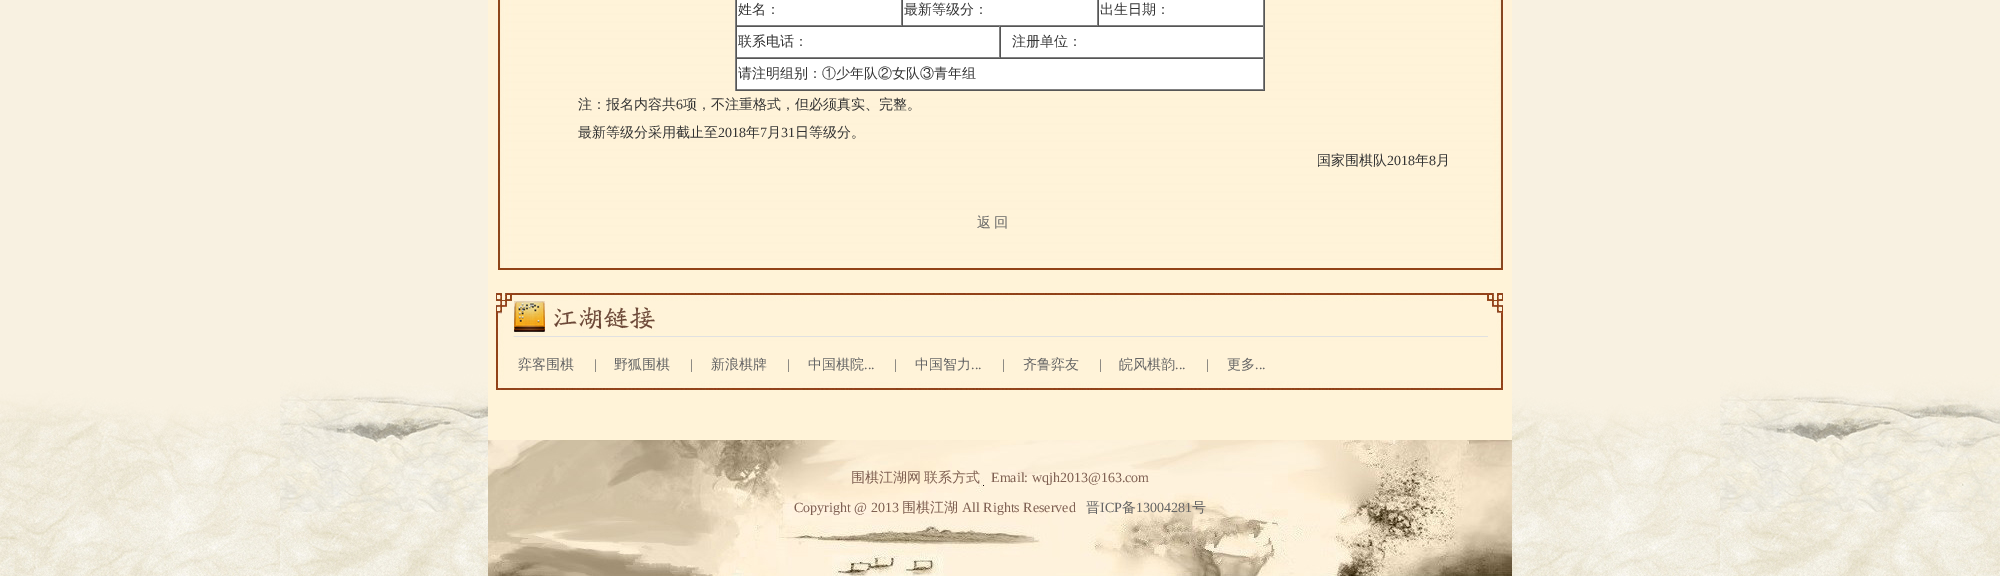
%!PS-Adobe-3.0
%%BoundingBox: 0 0 2000 576
%%LanguageLevel: 3
%%Pages: 1
%%EndComments
%%BeginProlog
/drawimage { 5 dict begin { /h /w /y /x /name } { exch def } forall
  gsave x y translate w h scale
  w h 8 [w 0 0 h 0 0] name (r) file false 3 colorimage grestore end } def
%%EndProlog
%%BeginSetup
<< /PageSize [2000 576] >> setpagedevice
%%EndSetup
%%Page: 1 1
0 576 translate 1 -1 scale
4 setmiterlimit
0.973 0.945 0.882 setrgbcolor
0 0 2000 576 rectfill
(images/1.raw) 0 368 2000 208 drawimage
1 0.953 0.847 setrgbcolor
488 0 1024 440 rectfill
(images/2.raw) 498 0 1005 268 drawimage
0.569 0.259 0.09 setrgbcolor
498 268 1005 2 rectfill
0.333 setgray
1264 0 1 91 rectfill
735 90 530 1 rectfill
0.502 setgray
735 0 1 91 rectfill
1 setgray
737 0 164 25 rectfill
0.502 setgray
901 0 1 26 rectfill
736 25 166 1 rectfill
0.333 setgray
736 0 1 26 rectfill
1 setgray
903 0 194 25 rectfill
0.502 setgray
1097 0 1 26 rectfill
902 25 196 1 rectfill
0.333 setgray
902 0 1 26 rectfill
1 setgray
1099 0 164 25 rectfill
0.502 setgray
1263 0 1 26 rectfill
1098 25 166 1 rectfill
0.333 setgray
1098 0 1 26 rectfill
1 setgray
737 27 262 30 rectfill
0.333 setgray
736 26 528 1 rectfill
0.502 setgray
999 26 1 32 rectfill
736 57 264 1 rectfill
0.333 setgray
736 26 1 32 rectfill
1 setgray
1001 27 262 30 rectfill
0.502 setgray
1263 26 1 32 rectfill
1000 57 264 1 rectfill
0.333 setgray
1000 26 1 32 rectfill
1 setgray
737 59 526 30 rectfill
0.333 setgray
736 58 528 1 rectfill
0.502 setgray
1263 58 1 32 rectfill
736 89 528 1 rectfill
0.333 setgray
736 58 1 32 rectfill
(images/3.raw) 496 293 1007 97 drawimage
(images/4.raw) 488 440 1024 136 drawimage
/WenQuanYiZenHei-Medium [14 0 0 -14 0 0] selectfont
0.2 setgray
738 14 moveto (姓名：) show
904 14 moveto (最新等级分：) show
1100 14 moveto (出生日期：) show
738 46 moveto (联系电话：) show
1012 46 moveto (注册单位：) show
738 78 moveto (请注明组别：①少年队②女队③青年组) show
578 109 moveto (注：报名内容共) show
/LiberationSerif-Regular [14 0 0 -14 0 0] selectfont
676 109 moveto (6) show
/WenQuanYiZenHei-Medium [14 0 0 -14 0 0] selectfont
683 109 moveto (项，不注重格式，但必须真实、完整。) show
578 137 moveto (最新等级分采用截止至) show
/LiberationSerif-Regular [14 0 0 -14 0 0] selectfont
718 137 moveto (2018) show
/WenQuanYiZenHei-Medium [14 0 0 -14 0 0] selectfont
746 137 moveto (年) show
/LiberationSerif-Regular [14 0 0 -14 0 0] selectfont
760 137 moveto (7) show
/WenQuanYiZenHei-Medium [14 0 0 -14 0 0] selectfont
767 137 moveto (月) show
/LiberationSerif-Regular [14 0 0 -14 0 0] selectfont
781 137 moveto (31) show
/WenQuanYiZenHei-Medium [14 0 0 -14 0 0] selectfont
795 137 moveto (日等级分。) show
1317 165 moveto (国家围棋队) show
/LiberationSerif-Regular [14 0 0 -14 0 0] selectfont
1387 165 moveto (2018) show
/WenQuanYiZenHei-Medium [14 0 0 -14 0 0] selectfont
1415 165 moveto (年) show
/LiberationSerif-Regular [14 0 0 -14 0 0] selectfont
1429 165 moveto (8) show
/WenQuanYiZenHei-Medium [14 0 0 -14 0 0] selectfont
1436 165 moveto (月) show
0.4 setgray
977 227 moveto -1 0 32 (返 回) widthshow
518 369 moveto (弈客围棋) show
/LiberationSerif-Regular [14 0 0 -14 0 0] selectfont
594 369 moveto (|) show
/WenQuanYiZenHei-Medium [14 0 0 -14 0 0] selectfont
614 369 moveto (野狐围棋) show
/LiberationSerif-Regular [14 0 0 -14 0 0] selectfont
690 369 moveto (|) show
/WenQuanYiZenHei-Medium [14 0 0 -14 0 0] selectfont
711 369 moveto (新浪棋牌) show
/LiberationSerif-Regular [14 0 0 -14 0 0] selectfont
787 369 moveto (|) show
/WenQuanYiZenHei-Medium [14 0 0 -14 0 0] selectfont
808 369 moveto (中国棋院) show
/LiberationSerif-Regular [14 0 0 -14 0 0] selectfont
864 369 moveto (...) show
894 369 moveto (|) show
/WenQuanYiZenHei-Medium [14 0 0 -14 0 0] selectfont
915 369 moveto (中国智力) show
/LiberationSerif-Regular [14 0 0 -14 0 0] selectfont
971 369 moveto (...) show
1002 369 moveto (|) show
/WenQuanYiZenHei-Medium [14 0 0 -14 0 0] selectfont
1023 369 moveto (齐鲁弈友) show
/LiberationSerif-Regular [14 0 0 -14 0 0] selectfont
1099 369 moveto (|) show
/WenQuanYiZenHei-Medium [14 0 0 -14 0 0] selectfont
1119 369 moveto (皖风棋韵) show
/LiberationSerif-Regular [14 0 0 -14 0 0] selectfont
1175 369 moveto (...) show
1206 369 moveto (|) show
/WenQuanYiZenHei-Medium [14 0 0 -14 0 0] selectfont
1227 369 moveto (更多) show
/LiberationSerif-Regular [14 0 0 -14 0 0] selectfont
1255 369 moveto (...) show
/WenQuanYiZenHei-Medium [14 0 0 -14 0 0] selectfont
0.498 0.376 0.322 setrgbcolor
851 482 moveto (围棋江湖网) show
924 482 moveto (联系方式) show
/LiberationSerif-Regular [14 0 0 -14 0 0] selectfont
991 482 moveto (Email: wqjh2013@163.com) show
794 512 moveto (Copyright @ 2013) show
/WenQuanYiZenHei-Medium [14 0 0 -14 0 0] selectfont
902 512 moveto (围棋江湖) show
/LiberationSerif-Regular [14 0 0 -14 0 0] selectfont
962 512 moveto (All Rights Reserved) show
/WenQuanYiZenHei-Medium [14 0 0 -14 0 0] selectfont
0.4 setgray
1086 512 moveto (晋) show
/LiberationSerif-Regular [14 0 0 -14 0 0] selectfont
1100 512 moveto (ICP) show
/WenQuanYiZenHei-Medium [14 0 0 -14 0 0] selectfont
1122 512 moveto (备) show
/LiberationSerif-Regular [14 0 0 -14 0 0] selectfont
1136 512 moveto (13004281) show
/WenQuanYiZenHei-Medium [14 0 0 -14 0 0] selectfont
1192 512 moveto (号) show
showpage
%%EOF
